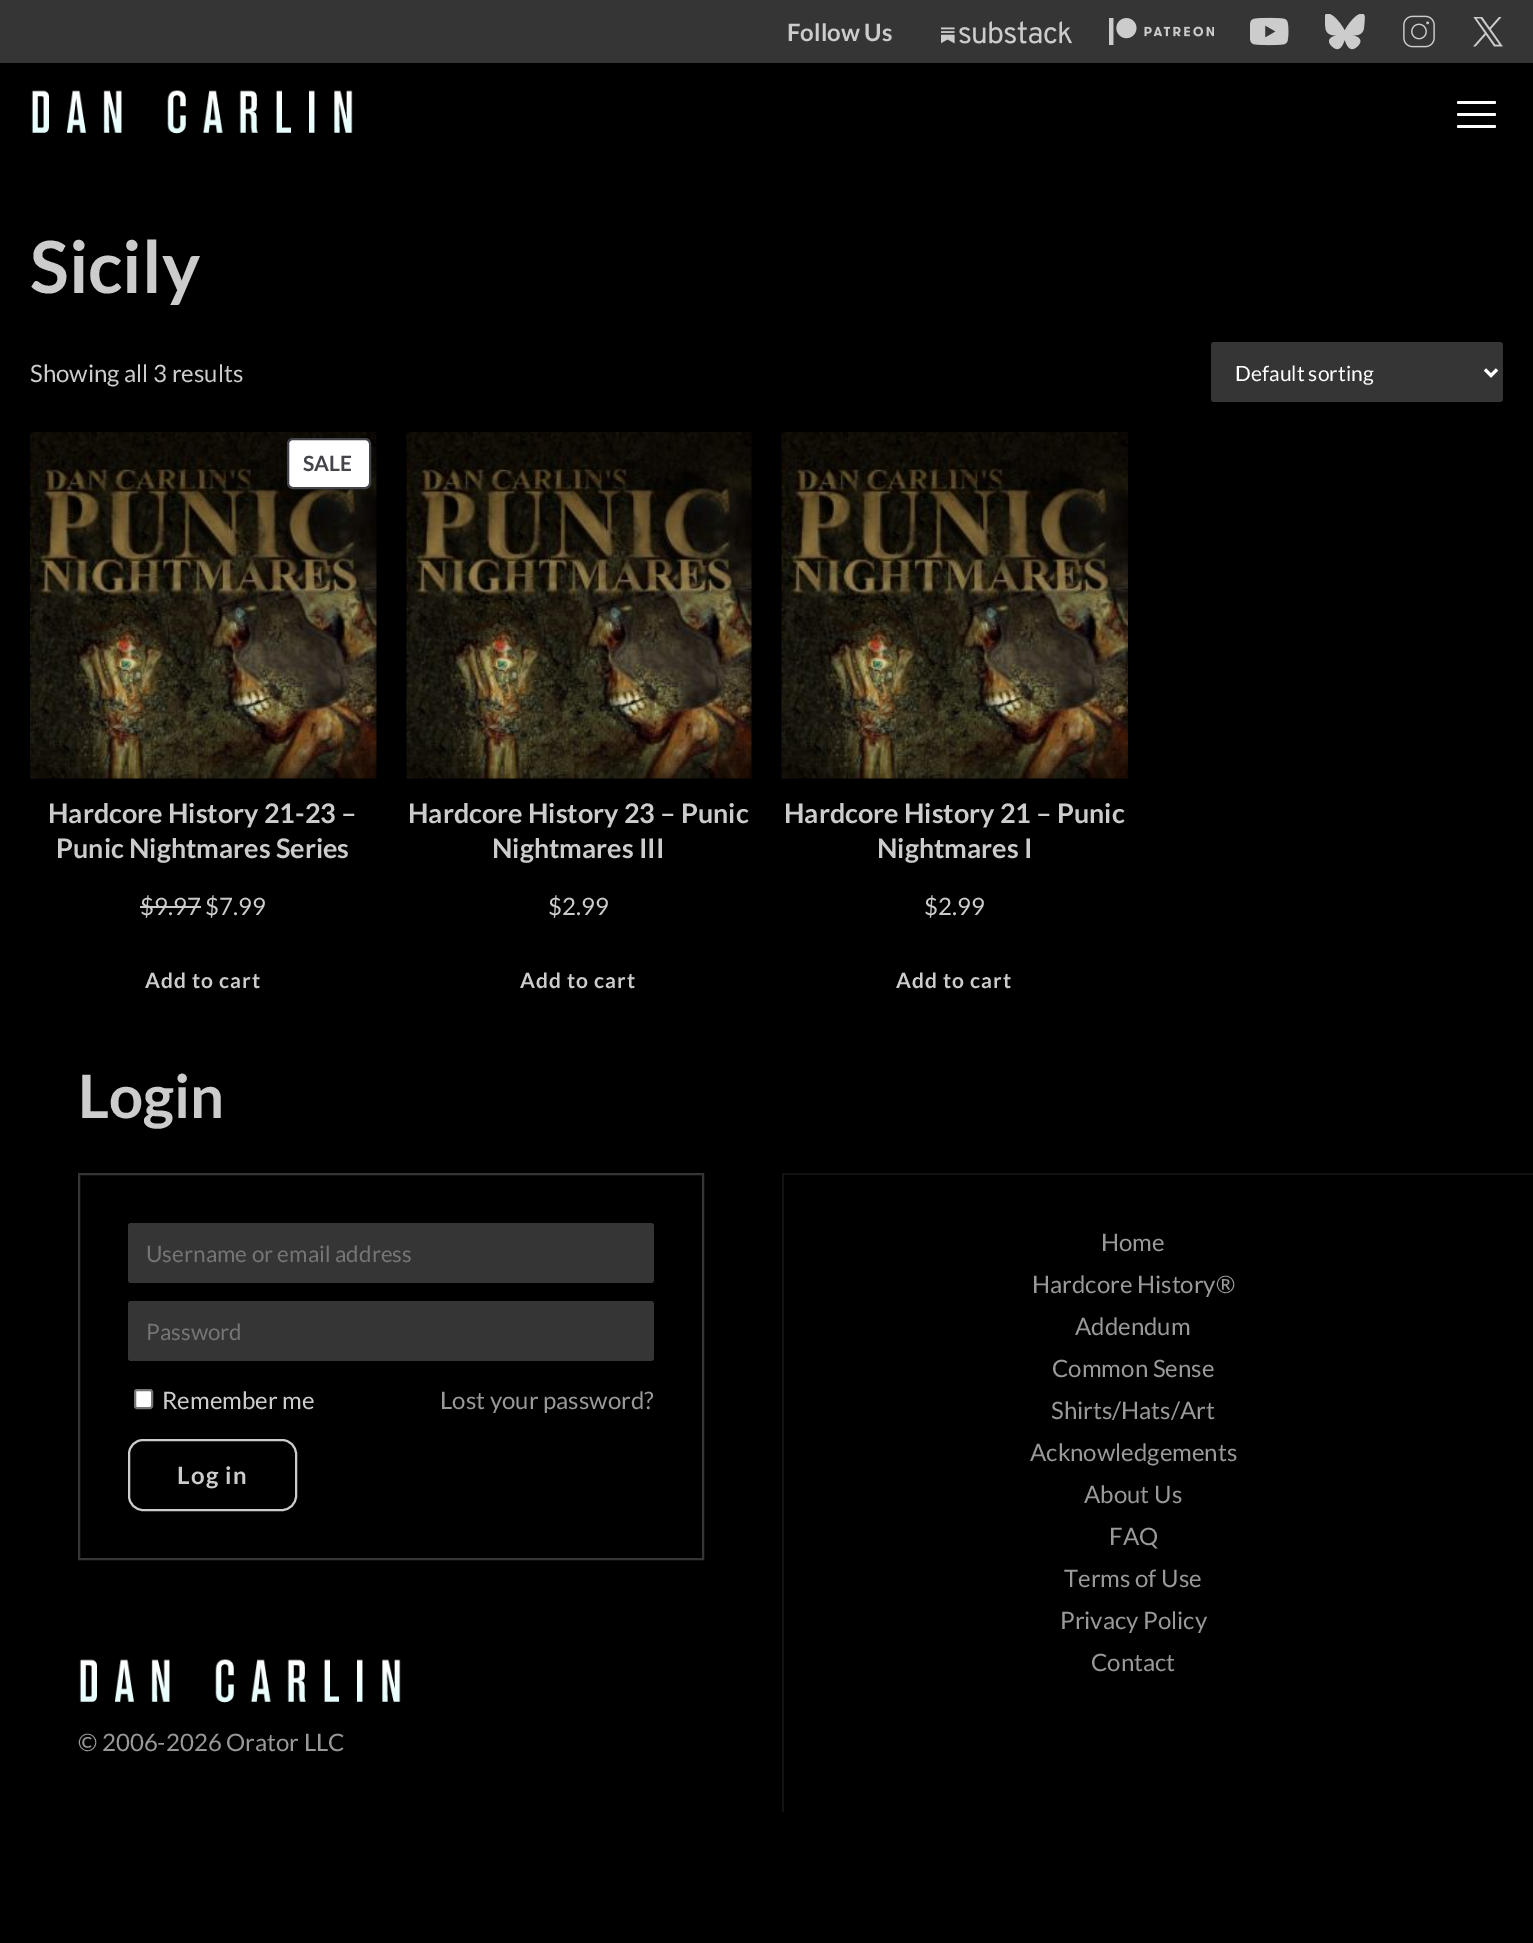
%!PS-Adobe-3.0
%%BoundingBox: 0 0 1533 1943
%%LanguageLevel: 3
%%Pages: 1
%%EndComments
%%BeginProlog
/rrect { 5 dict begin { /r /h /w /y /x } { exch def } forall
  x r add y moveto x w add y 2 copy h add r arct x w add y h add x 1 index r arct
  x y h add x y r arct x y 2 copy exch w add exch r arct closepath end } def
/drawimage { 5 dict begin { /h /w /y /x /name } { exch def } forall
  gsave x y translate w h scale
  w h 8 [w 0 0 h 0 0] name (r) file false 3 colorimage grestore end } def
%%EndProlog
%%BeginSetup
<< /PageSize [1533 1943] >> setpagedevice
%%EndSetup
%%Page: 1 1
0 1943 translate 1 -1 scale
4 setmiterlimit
0 setgray
0 0 1533 1943 rectfill
0.208 setgray
0 0 1533 63 rectfill
(images/1.raw) 941 21 131 23 drawimage
(images/2.raw) 1109 18 105 27 drawimage
(images/3.raw) 1250 17 39 29 drawimage
(images/4.raw) 1325 14 40 36 drawimage
(images/5.raw) 1403 15 32 33 drawimage
(images/6.raw) 1473 17 30 30 drawimage
(images/7.raw) 31 90 322 44 drawimage
1 setgray
1457 101 39 3 1.5 rrect fill
1457 113 39 3 1.5 rrect fill
1457 125 39 3 1.5 rrect fill
0.208 setgray
1211 342 292 60 3 rrect fill
1 setgray
3 setlinewidth
newpath 1485 369.5 moveto 1491 375.5 lineto 1497 369.5 lineto stroke
(images/8.raw) 30 432 347 347 drawimage
288 439 82 49 5 rrect gsave fill grestore
0.263 0.271 0.294 setrgbcolor
2 setlinewidth
stroke
0.8 setgray
140 906 61 2 rectfill
(images/9.raw) 406 432 346 347 drawimage
(images/10.raw) 781 432 347 347 drawimage
0.208 setgray
79 1174 624 385 rectstroke
128 1223 526 60 3 rrect fill
128 1301 526 60 3 rrect fill
1 setgray
135 1390 17 18 2 rrect gsave fill grestore
0.463 setgray
stroke
0.8 setgray
129 1440 167 70 14 rrect stroke
(images/11.raw) 79 1659 322 44 drawimage
0.071 setgray
782 1173 2 639 rectfill
782 1173 751 2 rectfill
/Lato-Bold [24 0 0 -24 0 0] selectfont
0.8 setgray
787 41 moveto (Follow Us) show
/Lato-Bold [72 0 0 -72 0 0] selectfont
30 293 moveto (Sicily) show
/Lato-Regular [24 0 0 -24 0 0] selectfont
30 382 moveto (Showing all 3 results) show
/Lato-Regular [21 0 0 -21 0 0] selectfont
1 setgray
1235 381 moveto (Default sorting) show
/Lato-Bold [21 0 0 -21 0 0] selectfont
0.263 0.271 0.294 setrgbcolor
303 471 moveto (SALE) show
/Lato-Bold [27 0 0 -27 0 0] selectfont
0.8 setgray
48 823 moveto (Hardcore History 21-23 –) show
56 858 moveto (Punic Nightmares Series) show
/Lato-Regular [24 0 0 -24 0 0] selectfont
140 915 moveto ($9.97 $7.99) show
/Lato-Bold [21 0 0 -21 0 0] selectfont
145 988 moveto 1 0 (Add to cart) ashow
/Lato-Bold [27 0 0 -27 0 0] selectfont
408 823 moveto (Hardcore History 23 – Punic) show
492 858 moveto (Nightmares III) show
/Lato-Regular [24 0 0 -24 0 0] selectfont
548 915 moveto ($2.99) show
/Lato-Bold [21 0 0 -21 0 0] selectfont
520 988 moveto 1 0 (Add to cart) ashow
/Lato-Bold [27 0 0 -27 0 0] selectfont
784 823 moveto (Hardcore History 21 – Punic) show
877 858 moveto (Nightmares I) show
/Lato-Regular [24 0 0 -24 0 0] selectfont
924 915 moveto ($2.99) show
/Lato-Bold [21 0 0 -21 0 0] selectfont
896 988 moveto 1 0 (Add to cart) ashow
/Lato-Bold [60 0 0 -60 0 0] selectfont
78 1118 moveto (Login) show
/Lato-Regular [22.5 0 0 -22.5 0 0] selectfont
0.459 setgray
146 1262 moveto (Username or email address) show
146 1340 moveto (Password) show
/Lato-Regular [24 0 0 -24 0 0] selectfont
0.8 setgray
162 1409 moveto (Remember me) show
0.604 0.6 0.6 setrgbcolor
440 1409 moveto (Lost your password?) show
/Lato-Bold [24 0 0 -24 0 0] selectfont
0.8 setgray
177 1484 moveto 1.25 0 (Log in) ashow
/Lato-Regular [24 0 0 -24 0 0] selectfont
0.604 0.6 0.6 setrgbcolor
78 1751 moveto (© 2006-2026 Orator LLC) show
1101 1251 moveto (Home) show
1032 1293 moveto (Hardcore History®) show
1075 1335 moveto (Addendum) show
1052 1377 moveto (Common Sense) show
1051 1419 moveto (Shirts/Hats/Art) show
1030 1461 moveto (Acknowledgements) show
1084 1503 moveto (About Us) show
1109 1545 moveto (FAQ) show
1064 1587 moveto (Terms of Use) show
1060 1629 moveto (Privacy Policy) show
1091 1671 moveto (Contact) show
showpage
%%EOF
